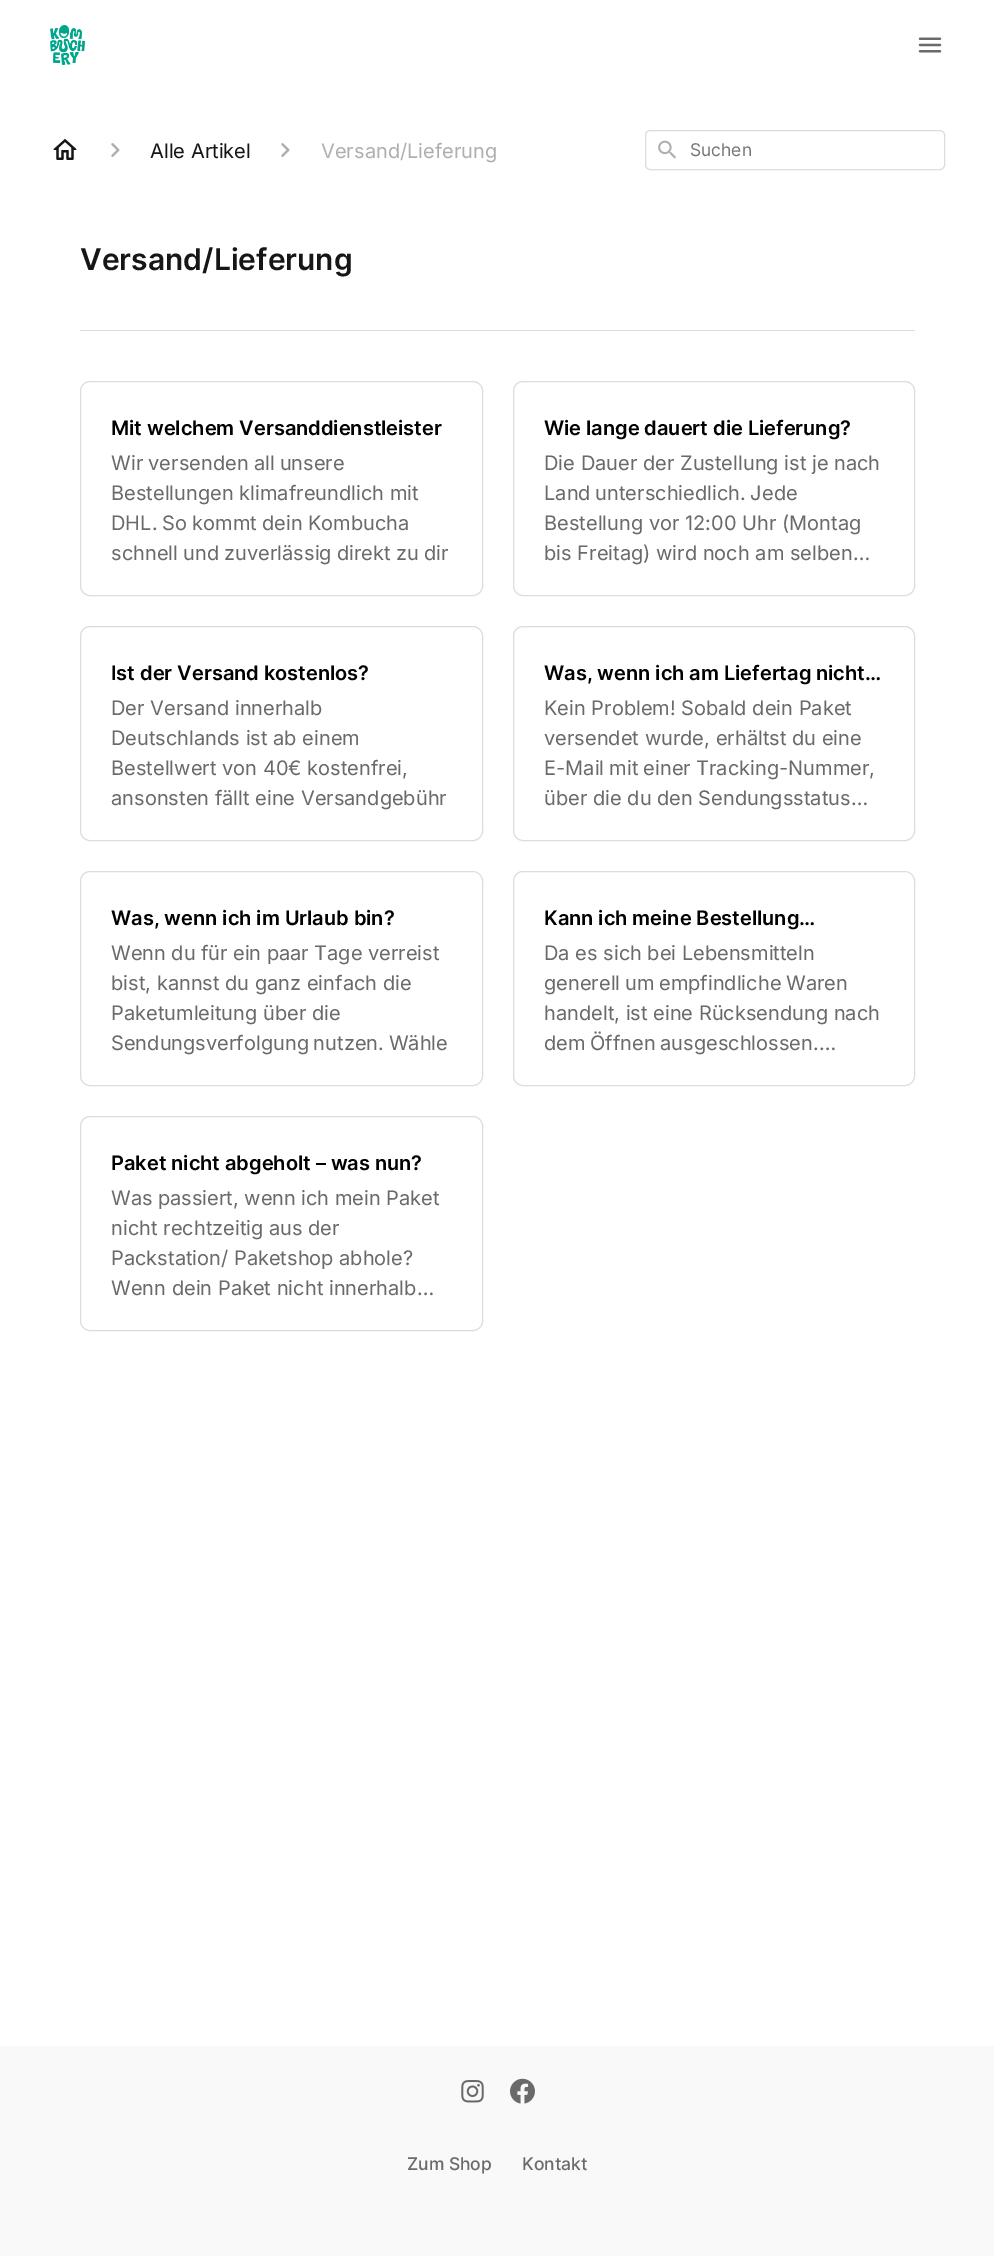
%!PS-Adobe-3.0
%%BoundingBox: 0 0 994 2256
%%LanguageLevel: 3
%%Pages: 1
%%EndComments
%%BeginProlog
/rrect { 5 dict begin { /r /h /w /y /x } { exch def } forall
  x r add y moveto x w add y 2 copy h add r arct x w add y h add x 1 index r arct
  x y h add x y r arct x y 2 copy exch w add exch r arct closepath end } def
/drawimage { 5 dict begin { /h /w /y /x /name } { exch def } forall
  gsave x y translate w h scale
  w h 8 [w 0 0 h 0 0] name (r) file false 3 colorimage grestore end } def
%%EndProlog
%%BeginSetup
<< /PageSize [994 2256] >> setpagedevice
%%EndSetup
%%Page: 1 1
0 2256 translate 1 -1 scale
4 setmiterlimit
1 setgray
0 0 994 2256 rectfill
(images/1.raw) 50 25 35 40 drawimage
(images/2.raw) 918 37 24 16 drawimage
(images/3.raw) 53 139 24 21 drawimage
(images/4.raw) 111 143 9 14 drawimage
(images/4.raw) 281 143 9 14 drawimage
0.867 setgray
645.5 130.5 299 39 4.5 rrect stroke
(images/5.raw) 658 140 18 19 drawimage
80 330 835 1 rectfill
80.5 381.5 402 214 9.5 rrect stroke
513.5 381.5 401 214 9.5 rrect stroke
80.5 626.5 402 214 9.5 rrect stroke
513.5 626.5 401 214 9.5 rrect stroke
80.5 871.5 402 214 9.5 rrect stroke
513.5 871.5 401 214 9.5 rrect stroke
80.5 1116.5 402 214 9.5 rrect stroke
0.976 setgray
0 2046 994 210 rectfill
(images/6.raw) 461 2080 23 23 drawimage
(images/7.raw) 510 2078 25 26 drawimage
/Inter-Regular [20 0 0 -20 0 0] selectfont
0.086 setgray
150 158 moveto (Alle Artikel) show
0.686 setgray
321 158 moveto (Versand/Lieferung) show
/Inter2-Regular [17.5 0 0 -17.5 0 0] selectfont
0.459 setgray
690 156 moveto (Suchen) show
/Inter-SemiBold [30 0 0 -30 0 0] selectfont
0.086 setgray
80 270 moveto (Versand/Lieferung) show
/Inter-SemiBold [20 0 0 -20 0 0] selectfont
0 setgray
111 435 moveto (Mit welchem Versanddienstleister) show
/Inter-Regular [20 0 0 -20 0 0] selectfont
0.416 setgray
111 470 moveto -0.5 0 32 (Wir versenden all unsere) widthshow
111 500 moveto (Bestellungen klimafreundlich mit) show
111 530 moveto -0.5 0 32 (DHL. So kommt dein Kombucha) widthshow
111 560 moveto -0.5 0 32 (schnell und zuverlässig direkt zu dir) widthshow
/Inter-SemiBold [20 0 0 -20 0 0] selectfont
0 setgray
544 435 moveto (Wie lange dauert die Lieferung?) show
/Inter-Regular [20 0 0 -20 0 0] selectfont
0.416 setgray
544 470 moveto (Die Dauer der Zustellung ist je nach) show
544 500 moveto -1 0 32 (Land unterschiedlich. Jede) widthshow
544 530 moveto (Bestellung vor 12:00 Uhr \(Montag) show
544 560 moveto (bis Freitag\) wird noch am selben…) show
/Inter-SemiBold [20 0 0 -20 0 0] selectfont
0 setgray
111 680 moveto (Ist der Versand kostenlos?) show
/Inter-Regular [20 0 0 -20 0 0] selectfont
0.416 setgray
111 715 moveto (Der Versand innerhalb) show
111 745 moveto (Deutschlands ist ab einem) show
111 775 moveto (Bestellwert von 40€ kostenfrei,) show
111 805 moveto (ansonsten fällt eine Versandgebühr) show
/Inter-SemiBold [20 0 0 -20 0 0] selectfont
0 setgray
544 680 moveto (Was, wenn ich am Liefertag nicht…) show
/Inter-Regular [20 0 0 -20 0 0] selectfont
0.416 setgray
544 715 moveto (Kein Problem! Sobald dein Paket) show
544 745 moveto (versendet wurde, erhältst du eine) show
544 775 moveto -0.5 0 32 (E-Mail mit einer Tracking-Nummer,) widthshow
544 805 moveto (über die du den Sendungsstatus…) show
/Inter-SemiBold [20 0 0 -20 0 0] selectfont
0 setgray
111 925 moveto (Was, wenn ich im Urlaub bin?) show
/Inter-Regular [20 0 0 -20 0 0] selectfont
0.416 setgray
111 960 moveto -0.25 0 32 (Wenn du für ein paar Tage verreist) widthshow
111 990 moveto (bist, kannst du ganz einfach die) show
111 1020 moveto (Paketumleitung über die) show
111 1050 moveto -1 0 32 (Sendungsverfolgung nutzen. Wähle) widthshow
/Inter-SemiBold [20 0 0 -20 0 0] selectfont
0 setgray
544 925 moveto (Kann ich meine Bestellung…) show
/Inter-Regular [20 0 0 -20 0 0] selectfont
0.416 setgray
544 960 moveto (Da es sich bei Lebensmitteln) show
544 990 moveto -1 0 32 (generell um empfindliche Waren) widthshow
544 1020 moveto (handelt, ist eine Rücksendung nach) show
544 1050 moveto -1 0 32 (dem Öffnen ausgeschlossen.…) widthshow
/Inter-SemiBold [20 0 0 -20 0 0] selectfont
0 setgray
111 1170 moveto (Paket nicht abgeholt – was nun?) show
/Inter-Regular [20 0 0 -20 0 0] selectfont
0.416 setgray
111 1205 moveto -0.25 0 32 (Was passiert, wenn ich mein Paket) widthshow
111 1235 moveto (nicht rechtzeitig aus der) show
111 1265 moveto (Packstation/ Paketshop abhole?) show
111 1295 moveto (Wenn dein Paket nicht innerhalb…) show
/Inter-Medium [17.5 0 0 -17.5 0 0] selectfont
407 2170 moveto (Zum Shop) show
522 2170 moveto (Kontakt) show
showpage
%%EOF
